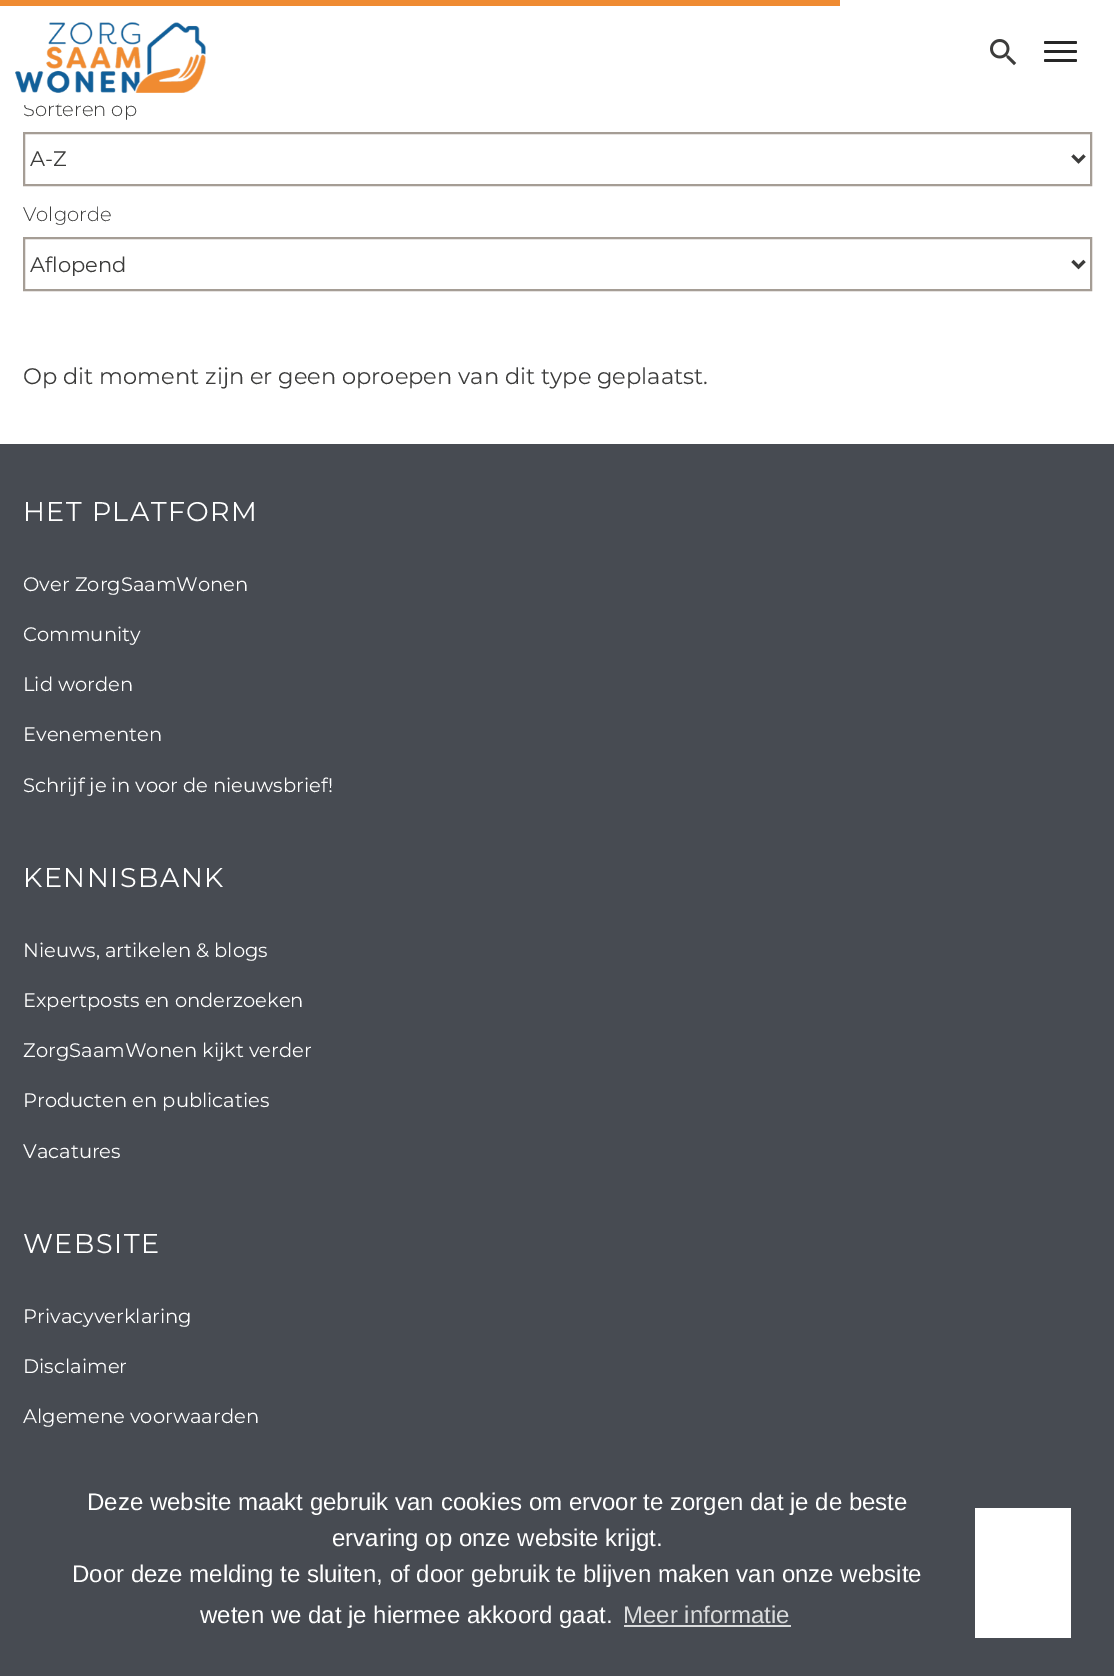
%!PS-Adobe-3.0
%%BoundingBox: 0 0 1114 1676
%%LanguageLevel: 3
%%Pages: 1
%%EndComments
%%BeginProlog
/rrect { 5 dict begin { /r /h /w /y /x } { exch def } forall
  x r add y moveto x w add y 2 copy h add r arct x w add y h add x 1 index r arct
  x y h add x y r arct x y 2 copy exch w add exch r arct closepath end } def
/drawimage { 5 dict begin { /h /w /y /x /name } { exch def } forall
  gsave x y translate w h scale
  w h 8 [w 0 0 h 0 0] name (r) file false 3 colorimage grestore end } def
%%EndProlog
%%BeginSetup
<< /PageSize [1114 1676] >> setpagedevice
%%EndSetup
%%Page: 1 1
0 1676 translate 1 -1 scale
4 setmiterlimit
1 setgray
0 0 1114 1676 rectfill
0.937 0.545 0.196 setrgbcolor
0 0 840 6 rectfill
(images/1.raw) 15 22 191 71 drawimage
(images/2.raw) 990 39 27 27 drawimage
0.149 setgray
1044 41 33 3 1.5 rrect fill
1044 50 33 3 1.5 rrect fill
1044 59 33 3 1.5 rrect fill
0.647 0.616 0.584 setrgbcolor
2 setlinewidth
24 133 1067 52 rectstroke
0.235 0.235 0.231 setrgbcolor
3 setlinewidth
newpath 1072.5 155.5 moveto 1078.5 161.5 lineto 1084.5 155.5 lineto stroke
0.647 0.616 0.584 setrgbcolor
2 setlinewidth
24 238 1067 52 rectstroke
0.235 0.235 0.231 setrgbcolor
3 setlinewidth
newpath 1072.5 261 moveto 1078.5 267 lineto 1084.5 261 lineto stroke
0.278 0.294 0.322 setrgbcolor
0 444 1114 1232 rectfill
0.855 0.859 0.863 setrgbcolor
624 1625 167 2 rectfill
1 setgray
975 1508 96 130 rectfill
/Montserrat-Light [19.5 0 0 -19.5 0 0] selectfont
0.235 0.235 0.231 setrgbcolor
23 116 moveto (Sorteren op) show
1 setgray
24 102 34 3 rectfill
/Montserrat-Regular [21 0 0 -21 0 0] selectfont
0.235 0.235 0.231 setrgbcolor
30 166 moveto (A-Z) show
/Montserrat-Light [19.5 0 0 -19.5 0 0] selectfont
23 221 moveto (Volgorde) show
/Montserrat-Regular [21 0 0 -21 0 0] selectfont
30 272 moveto (Aflopend) show
/Montserrat-Regular [22.5 0 0 -22.5 0 0] selectfont
23 384 moveto (Op dit moment zijn er geen oproepen van dit type geplaatst.) show
/Montserrat-Regular [27 0 0 -27 0 0] selectfont
1 setgray
23 521 moveto 1.5 0 (HET PLATFORM) ashow
/Montserrat-Regular [19.5 0 0 -19.5 0 0] selectfont
23 591 moveto (Over ZorgSaamWonen) show
23 641 moveto (Community) show
23 691 moveto (Lid worden) show
23 741 moveto (Evenementen) show
23 792 moveto (Schrijf je in voor de nieuwsbrief!) show
/Montserrat-Regular [27 0 0 -27 0 0] selectfont
23 887 moveto 1.5 0 (KENNISBANK) ashow
/Montserrat-Regular [19.5 0 0 -19.5 0 0] selectfont
23 957 moveto (Nieuws, artikelen & blogs) show
23 1007 moveto (Expertposts en onderzoeken) show
23 1057 moveto (ZorgSaamWonen kijkt verder) show
23 1107 moveto (Producten en publicaties) show
23 1158 moveto (Vacatures) show
/Montserrat-Regular [27 0 0 -27 0 0] selectfont
23 1253 moveto 1.5 0 (WEBSITE) ashow
/Montserrat-Regular [19.5 0 0 -19.5 0 0] selectfont
23 1323 moveto (Privacyverklaring) show
23 1373 moveto (Disclaimer) show
23 1423 moveto (Algemene voorwaarden) show
/LiberationSans-Regular [24 0 0 -24 0 0] selectfont
87 1510 moveto (Deze website maakt gebruik van cookies om ervoor te zorgen dat je de beste) show
332 1546 moveto (ervaring op onze website krijgt.) show
72 1582 moveto (Door deze melding te sluiten, of door gebruik te blijven maken van onze website) show
200 1623 moveto (weten we dat je hiermee akkoord gaat.) show
0.855 0.859 0.863 setrgbcolor
623 1623 moveto (Meer informatie) show
showpage
%%EOF
